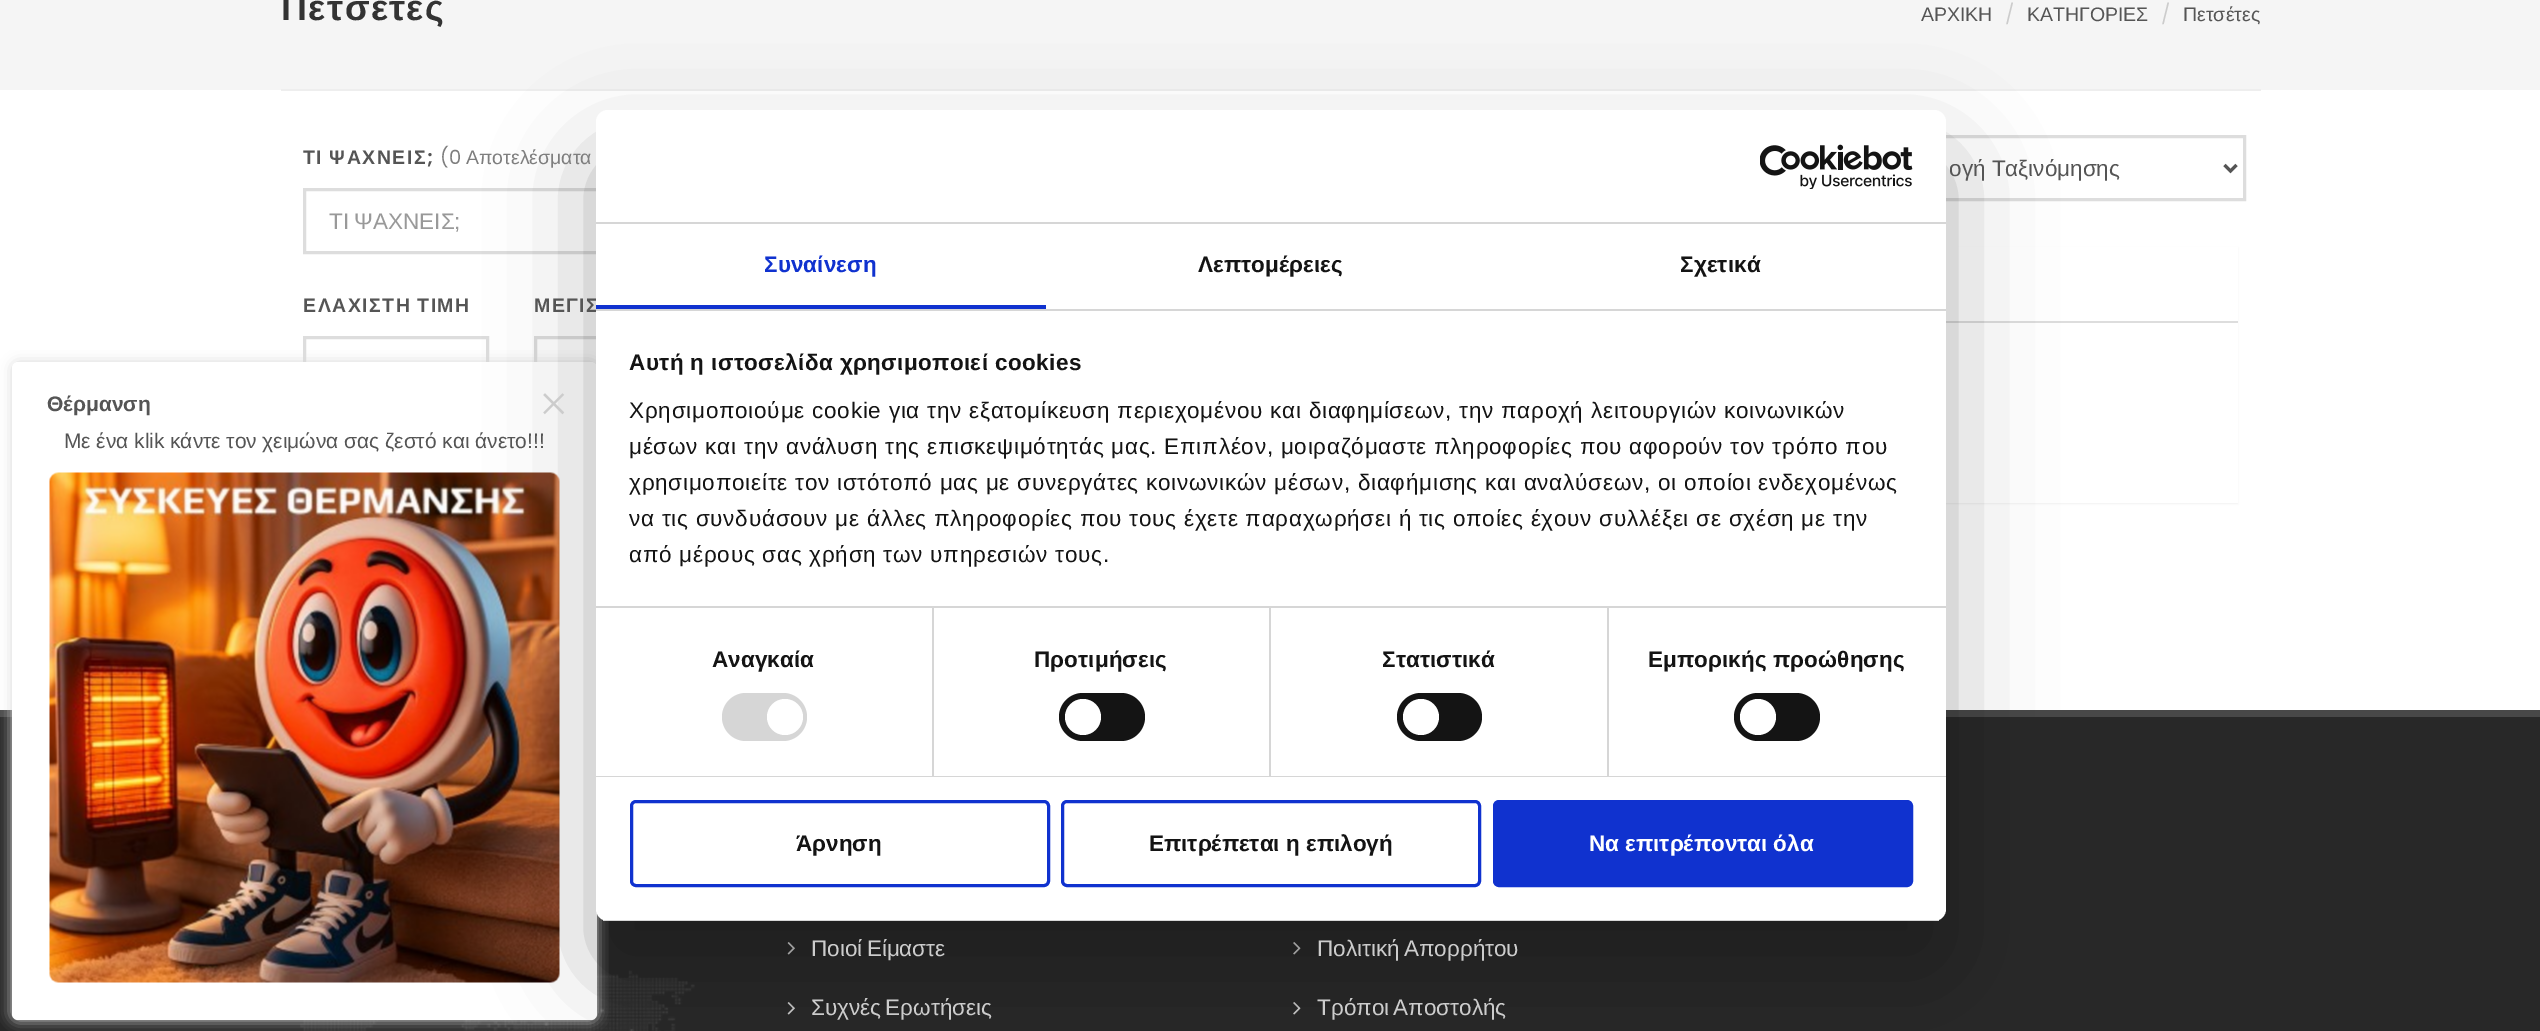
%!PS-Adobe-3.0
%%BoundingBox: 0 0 2540 1031
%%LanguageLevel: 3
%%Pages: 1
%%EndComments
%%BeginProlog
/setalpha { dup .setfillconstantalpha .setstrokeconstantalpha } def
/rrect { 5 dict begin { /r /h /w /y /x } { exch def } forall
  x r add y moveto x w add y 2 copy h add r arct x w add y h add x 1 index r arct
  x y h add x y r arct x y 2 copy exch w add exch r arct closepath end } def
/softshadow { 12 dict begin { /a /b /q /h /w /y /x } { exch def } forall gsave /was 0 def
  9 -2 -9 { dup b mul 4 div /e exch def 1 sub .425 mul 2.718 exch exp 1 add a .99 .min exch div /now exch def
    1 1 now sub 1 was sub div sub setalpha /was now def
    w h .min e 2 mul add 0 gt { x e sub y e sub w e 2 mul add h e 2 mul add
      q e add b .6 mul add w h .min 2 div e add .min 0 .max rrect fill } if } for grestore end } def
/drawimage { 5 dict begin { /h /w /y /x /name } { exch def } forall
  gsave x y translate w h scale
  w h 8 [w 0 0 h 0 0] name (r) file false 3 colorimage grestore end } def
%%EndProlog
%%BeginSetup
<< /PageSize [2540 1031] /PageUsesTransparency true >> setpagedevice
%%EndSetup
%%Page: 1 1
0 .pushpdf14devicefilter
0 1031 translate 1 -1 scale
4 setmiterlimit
1 setgray
0 0 2540 1031 rectfill
0.961 setgray
0 0 2540 90 rectfill
0.933 setgray
281 89 1980 2 rectfill
0.867 setgray
3 setlinewidth
304.5 189.5 414 63 rectstroke
304.5 337.5 183 63 rectstroke
535.5 337.5 183 63 rectstroke
1872.5 136.5 372 63 rectstroke
0.333 setgray
newpath 2224.5 165 moveto 2230.5 171 lineto 2236.5 165 lineto stroke
0 setgray
810 248 1428 256 0 1 0.05 softshadow
1 setgray
1946 247 292 256 rectfill
0.867 setgray
1946 321 292 2 rectfill
0.157 setgray
0 717 2540 314 rectfill
0.282 setgray
0 710 2540 7 rectfill
(images/3.raw) 300 970 395 61 drawimage
gsave
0 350 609 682 rectclip
0.851 setgray
12 362 585 658 6 6.5 1 softshadow
grestore
1 setgray
12 362 585 658 6 rrect fill
(images/1.raw) 49 472 511 511 drawimage
(images/4.raw) 787 942 8 13 drawimage
(images/4.raw) 787 1002 8 13 drawimage
(images/5.raw) 1293 942 8 13 drawimage
(images/5.raw) 1293 1002 8 13 drawimage
0 setgray
596 158 1350 811 12 51 0.3 softshadow
/LiberationSans-Bold [36 0 0 -36 0 0] selectfont
0.2 setgray
281 20 moveto 1.5 0 (Πετσέτες) ashow
/LiberationSans-Regular [19.5 0 0 -19.5 0 0] selectfont
0.333 setgray
1921 21 moveto (ΑΡΧΙΚΗ) show
/Poppins-Regular [19.5 0 0 -19.5 0 0] selectfont
0.8 setgray
2005 21 moveto (/) show
/LiberationSans-Regular [19.5 0 0 -19.5 0 0] selectfont
0.333 setgray
2027 21 moveto (ΚΑΤΗΓΟΡΙΕΣ) show
/Poppins-Regular [19.5 0 0 -19.5 0 0] selectfont
0.8 setgray
2161 21 moveto (/) show
/LiberationSans-Regular [19.5 0 0 -19.5 0 0] selectfont
0.333 setgray
2183 21 moveto (Πετσέτες) show
/LiberationSans-Bold [19.5 0 0 -19.5 0 0] selectfont
303 164 moveto -1 0 32 1.5 0 (ΤΙ ΨΑΧΝΕΙΣ) awidthshow
/Poppins-SemiBold [19.5 0 0 -19.5 0 0] selectfont
427 164 moveto 1.5 0 (;) ashow
/Poppins-Regular [19.5 0 0 -19.5 0 0] selectfont
0.494 setgray
440 164 moveto (\(0) show
/LiberationSans-Regular [19.5 0 0 -19.5 0 0] selectfont
466 164 moveto (Αποτελέσματα) show
/LiberationSans-Regular [22.5 0 0 -22.5 0 0] selectfont
0.6 setgray
329 229 moveto -1 0 32 (ΤΙ ΨΑΧΝΕΙΣ;) widthshow
/LiberationSans-Bold [19.5 0 0 -19.5 0 0] selectfont
0.333 setgray
303 312 moveto -1 0 32 1.5 0 (ΕΛΑΧΙΣΤΗ ΤΙΜΗ) awidthshow
534 312 moveto -1 0 32 1.5 0 (ΜΕΓΙΣ) awidthshow
/LiberationSans-Regular [22.5 0 0 -22.5 0 0] selectfont
1949 176 moveto (ογή Ταξινόμησης) show
/LiberationSans-Bold [21 0 0 -21 0 0] selectfont
47 411 moveto (Θέρμανση) show
/LiberationSerif-Regular [52 0 0 -52 0 0] selectfont
0.8 setgray
539 421 moveto (×) show
/LiberationSans-Regular [21 0 0 -21 0 0] selectfont
0.333 setgray
64 448 moveto -0.25 0 32 (Με ένα klik κάντε τον χειμώνα σας ζεστό και άνετο!!!) widthshow
1 setgray
596 110 1350 811 12 rrect fill
0.839 setgray
596 222 1350 2 rectfill
(images/2.raw) 1760 144 153 45 drawimage
596 309 1350 2 rectfill
0.063 0.196 0.812 setrgbcolor
596 305 450 4 rectfill
/LiberationSans-Bold [22.5 0 0 -22.5 0 0] selectfont
764 272 moveto 0.1 0 (Συναίνεση) ashow
0.078 setgray
1198 272 moveto 0.1 0 (Λεπτομέρειες) ashow
1680 272 moveto 0.1 0 (Σχετικά) ashow
0.839 setgray
596 606 1350 2 rectfill
0.078 setgray
629 370 moveto 0.4 0 (Αυτή η ιστοσελίδα χρησιμοποιεί cookies) ashow
/LiberationSans-Regular [22.5 0 0 -22.5 0 0] selectfont
629 418 moveto 0.75 0 (Χρησιμοποιούμε cookie για την εξατομίκευση περιεχομένου και διαφημίσεων, την παροχή λειτουργιών κοινωνικών) ashow
629 454 moveto 0.75 0 (μέσων και την ανάλυση της επισκεψιμότητάς μας. Επιπλέον, μοιραζόμαστε πληροφορίες που αφορούν τον τρόπο που) ashow
629 490 moveto 0.75 0 (χρησιμοποιείτε τον ιστότοπό μας με συνεργάτες κοινωνικών μέσων, διαφήμισης και αναλύσεων, οι οποίοι ενδεχομένως) ashow
629 526 moveto 0.75 0 (να τις συνδυάσουν με άλλες πληροφορίες που τους έχετε παραχωρήσει ή τις οποίες έχουν συλλέξει σε σχέση με την) ashow
629 562 moveto 0.75 0 (από μέρους σας χρήση των υπηρεσιών τους.) ashow
0.839 setgray
596 776 1350 1 rectfill
932 608 2 168 rectfill
/LiberationSans-Bold [22.5 0 0 -22.5 0 0] selectfont
0.078 setgray
712 667 moveto 0.1 0 (Αναγκαία) ashow
0.839 setgray
722 693 85 48 24 rrect fill
1 setgray
newpath 785 717 18 0 360 arc closepath fill
0.839 setgray
1269 608 2 168 rectfill
0.078 setgray
1034 667 moveto 0.1 0 (Προτιμήσεις) ashow
1059 693 86 48 24 rrect fill
1 setgray
newpath 1083 717 18 0 360 arc closepath fill
0.839 setgray
1607 608 2 168 rectfill
0.078 setgray
1382 667 moveto 0.1 0 (Στατιστικά) ashow
1397 693 85 48 24 rrect fill
1 setgray
newpath 1421 717 18 0 360 arc closepath fill
0.078 setgray
1648 667 moveto 0.1 0 (Εμπορικής προώθησης) ashow
1734 693 86 48 24 rrect fill
1 setgray
newpath 1758 717 18 0 360 arc closepath fill
gsave
596 110 1350 811 12 rrect clip newpath
0.839 setgray
596 920 1350 1 rectfill
grestore
0.063 0.196 0.812 setrgbcolor
631.5 801.5 417 84 4.5 rrect stroke
0.078 setgray
796 851 moveto (Άρνηση) show
0.063 0.196 0.812 setrgbcolor
1062.5 801.5 417 84 4.5 rrect stroke
0.078 setgray
1149 851 moveto (Επιτρέπεται η επιλογή) show
0.063 0.196 0.812 setrgbcolor
1494.5 801.5 417 84 4.5 rrect gsave fill grestore
stroke
1 setgray
1589 851 moveto (Να επιτρέπονται όλα) show
/LiberationSans-Regular [22.5 0 0 -22.5 0 0] selectfont
0.8 setgray
811 956 moveto -2 0 32 (Ποιοί Είμαστε) widthshow
811 1015 moveto -2 0 32 (Συχνές Ερωτήσεις) widthshow
1317 956 moveto -2 0 32 (Πολιτική Απορρήτου) widthshow
1317 1015 moveto -2 0 32 (Τρόποι Αποστολής) widthshow
.poppdf14devicefilter showpage
%%EOF
